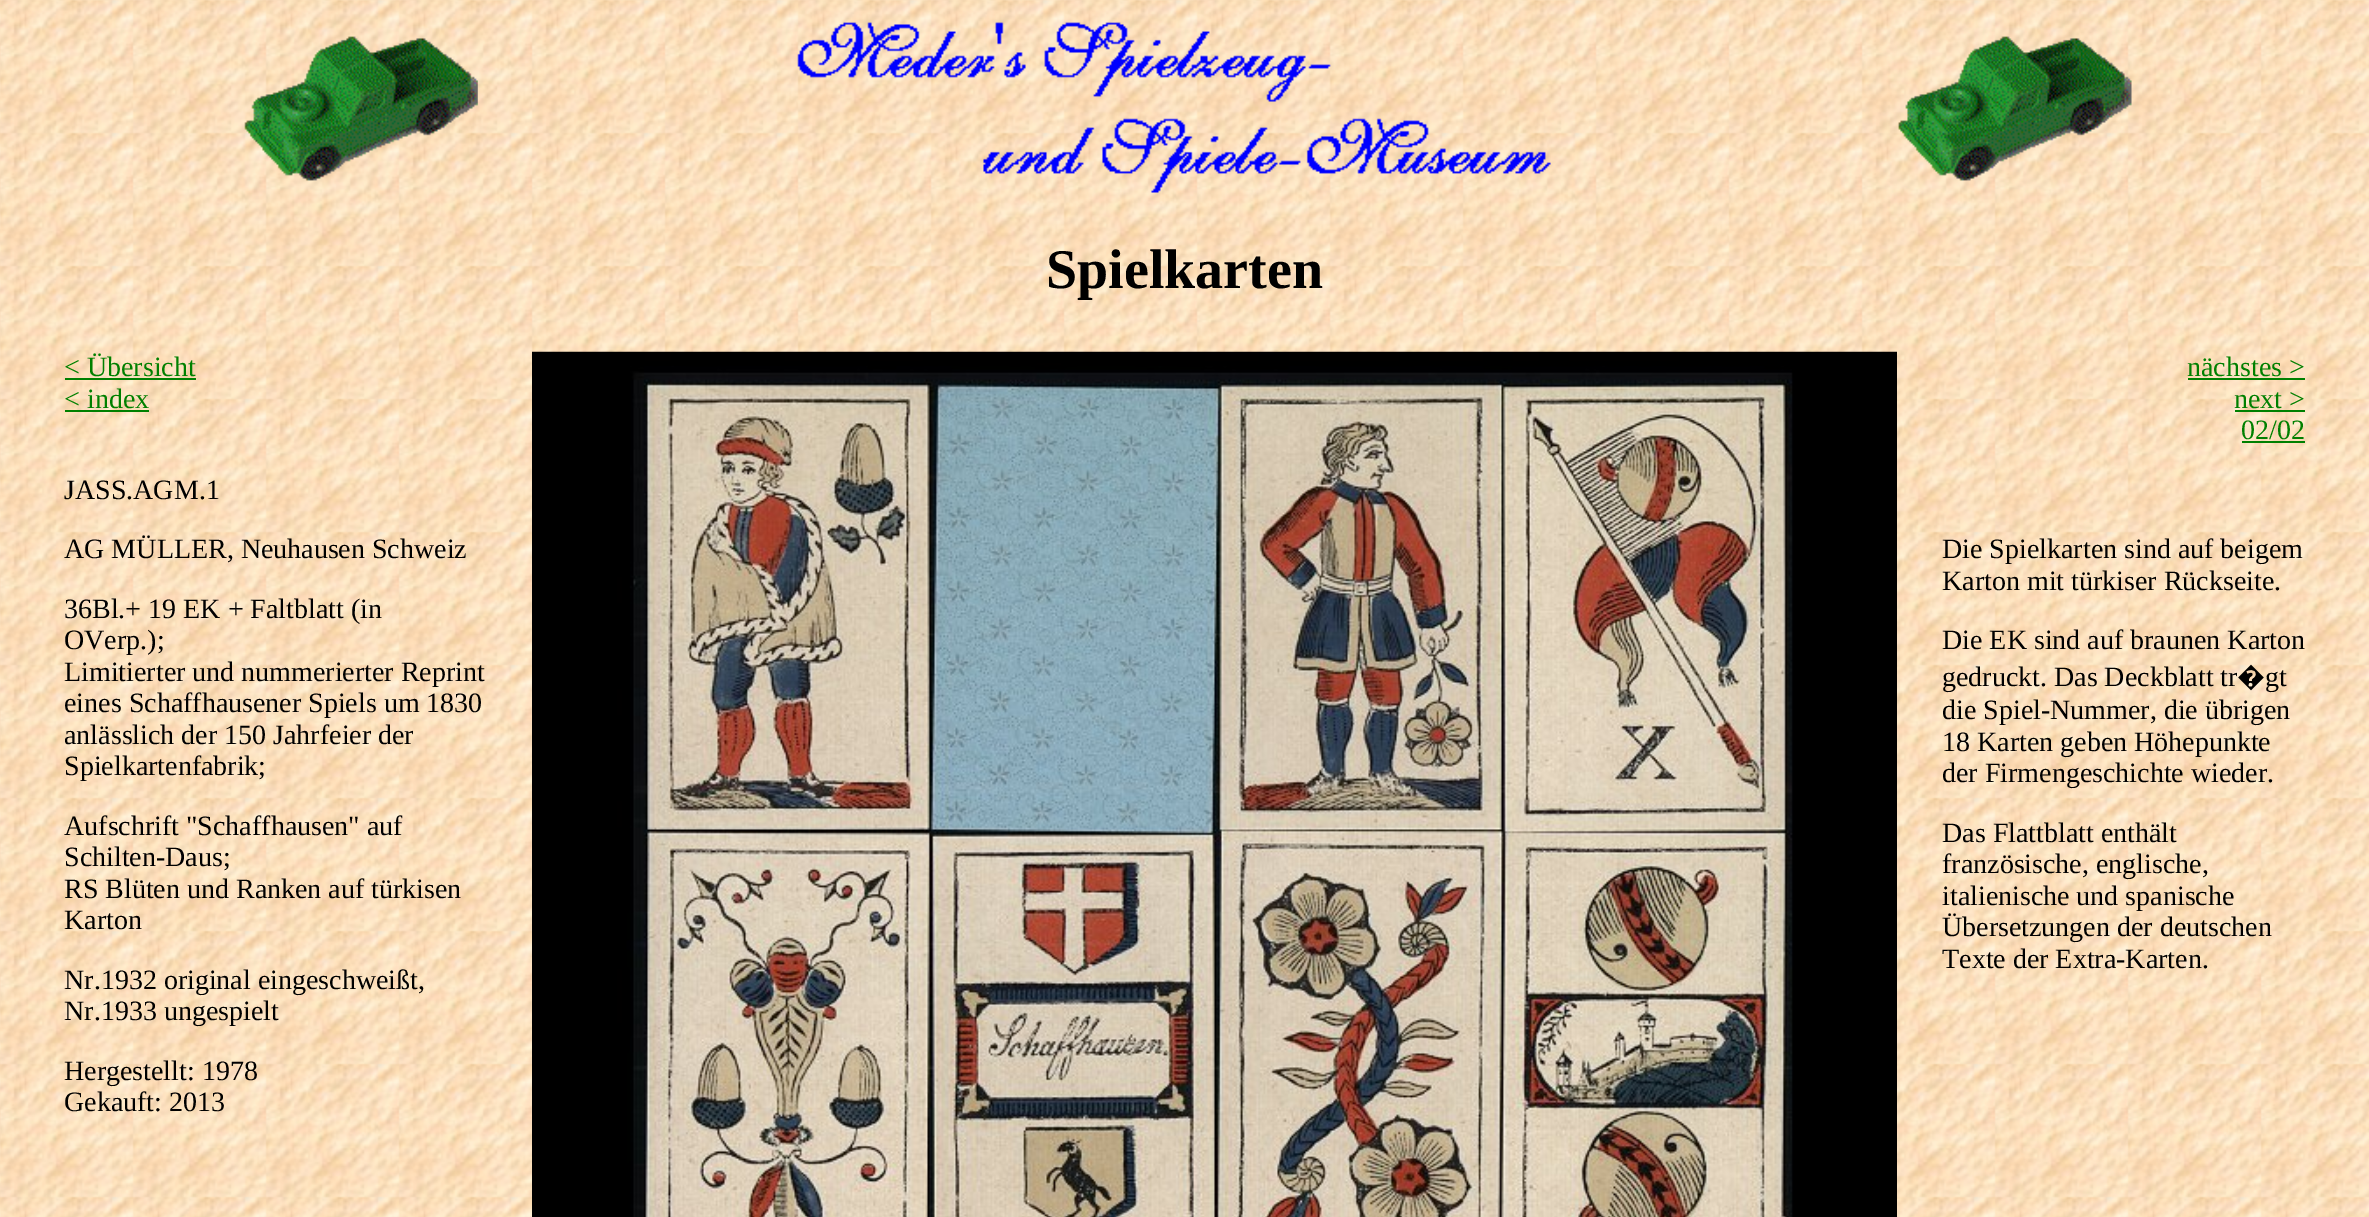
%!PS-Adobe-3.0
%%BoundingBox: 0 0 2369 1217
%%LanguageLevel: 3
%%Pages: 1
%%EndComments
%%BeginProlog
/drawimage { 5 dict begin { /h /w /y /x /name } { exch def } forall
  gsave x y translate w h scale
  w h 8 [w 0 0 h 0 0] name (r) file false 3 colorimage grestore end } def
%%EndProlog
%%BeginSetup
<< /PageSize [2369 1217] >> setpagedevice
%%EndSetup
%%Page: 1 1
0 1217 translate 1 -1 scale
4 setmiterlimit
1 setgray
0 0 2369 1217 rectfill
(images/1.raw) 0 0 2369 1217 drawimage
(images/2.raw) 244 36 234 145 drawimage
(images/3.raw) 797 22 754 171 drawimage
(images/4.raw) 1898 36 234 145 drawimage
0 0.502 0 setrgbcolor
65 378 131 2 rectfill
65 410 84 2 rectfill
(images/5.raw) 532 351 1365 866 drawimage
2188 378 117 2 rectfill
2235 410 70 2 rectfill
2242 441 63 2 rectfill
/LiberationSerif-Bold [56 0 0 -56 0 0] selectfont
0 setgray
1046 288 moveto (Spielkarten) show
/LiberationSerif-Regular [28 0 0 -28 0 0] selectfont
0 0.502 0 setrgbcolor
64 376 moveto (< Übersicht) show
64 408 moveto (< index) show
0 setgray
64 499 moveto (JASS.AGM.1) show
64 558 moveto (AG MÜLLER, Neuhausen Schweiz) show
64 618 moveto (36Bl.+ 19 EK + Faltblatt \(in) show
64 649 moveto (OVerp.\);) show
64 681 moveto (Limitierter und nummerierter Reprint) show
64 712 moveto (eines Schaffhausener Spiels um 1830) show
64 744 moveto (anlässlich der 150 Jahrfeier der) show
64 775 moveto (Spielkartenfabrik;) show
64 835 moveto (Aufschrift "Schaffhausen" auf) show
64 866 moveto (Schilten-Daus;) show
64 898 moveto (RS Blüten und Ranken auf türkisen) show
64 929 moveto (Karton) show
64 989 moveto (Nr.1932 original eingeschweißt,) show
64 1020 moveto (Nr.1933 ungespielt) show
64 1080 moveto (Hergestellt: 1978) show
64 1111 moveto (Gekauft: 2013) show
0 0.502 0 setrgbcolor
2187 376 moveto (nächstes >) show
2234 408 moveto (next >) show
2241 439 moveto (02/02) show
0 setgray
1942 558 moveto (Die Spielkarten sind auf beigem) show
1942 590 moveto (Karton mit türkiser Rückseite.) show
1942 649 moveto (Die EK sind auf braunen Karton) show
1942 686 moveto (gedruckt. Das Deckblatt tr) show
/NotoSans-Regular [28 0 0 -28 0 0] selectfont
2237 686 moveto (�) show
/LiberationSerif-Regular [28 0 0 -28 0 0] selectfont
2265 686 moveto (gt) show
1942 719 moveto (die Spiel-Nummer, die übrigen) show
1942 751 moveto (18 Karten geben Höhepunkte) show
1942 782 moveto (der Firmengeschichte wieder.) show
1942 842 moveto (Das Flattblatt enthält) show
1942 873 moveto (französische, englische,) show
1942 905 moveto (italienische und spanische) show
1942 936 moveto (Übersetzungen der deutschen) show
1942 968 moveto (Texte der Extra-Karten.) show
showpage
%%EOF
